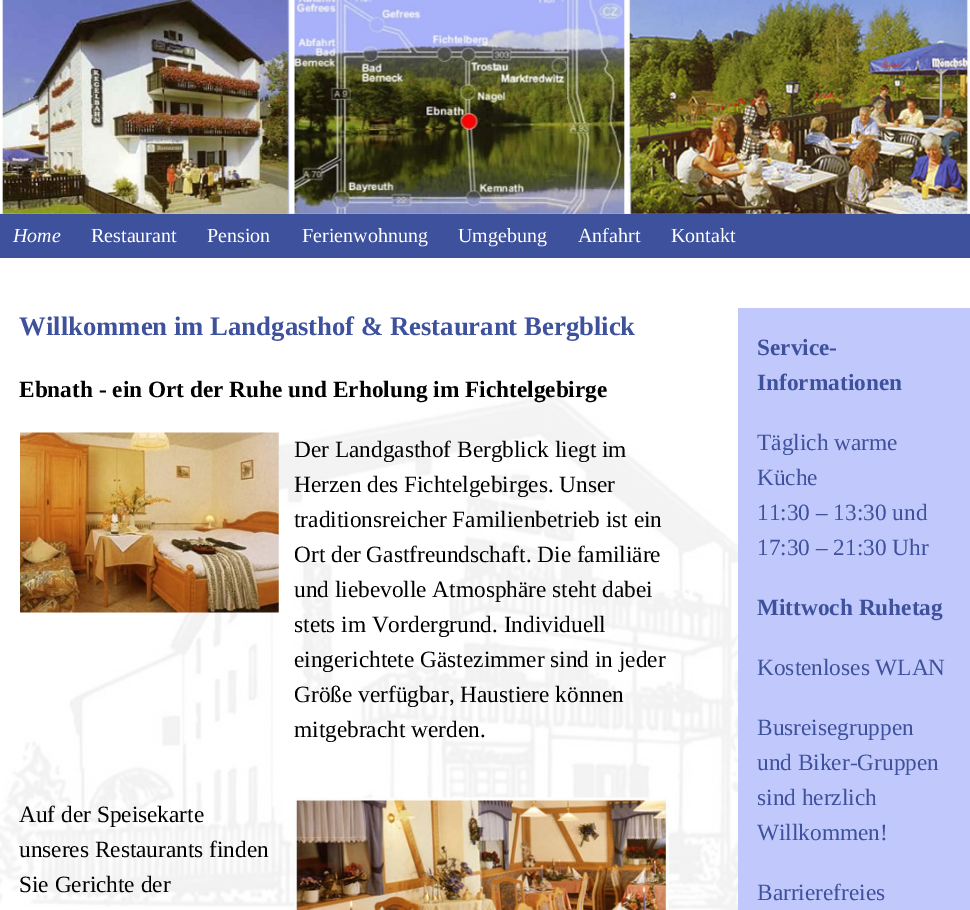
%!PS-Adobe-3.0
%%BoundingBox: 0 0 970 910
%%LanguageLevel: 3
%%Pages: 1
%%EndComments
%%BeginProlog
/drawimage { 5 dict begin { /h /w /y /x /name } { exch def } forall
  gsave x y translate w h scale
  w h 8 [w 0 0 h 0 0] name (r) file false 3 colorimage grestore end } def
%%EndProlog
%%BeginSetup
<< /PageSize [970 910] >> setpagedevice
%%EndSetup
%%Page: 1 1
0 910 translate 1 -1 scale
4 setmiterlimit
1 setgray
0 0 970 910 rectfill
(images/1.raw) 0 0 970 214 drawimage
0.243 0.318 0.616 setrgbcolor
0 214 970 44 rectfill
(images/2.raw) 0 394 738 516 drawimage
(images/3.raw) 20 432 259 181 drawimage
(images/4.raw) 294 797 375 113 drawimage
0.757 0.784 0.984 setrgbcolor
738 308 232 602 rectfill
/LiberationSerif-Italic [20 0 0 -20 0 0] selectfont
1 setgray
13 242 moveto (Home) show
/LiberationSerif-Regular [20 0 0 -20 0 0] selectfont
91 242 moveto (Restaurant) show
207 242 moveto (Pension) show
302 242 moveto (Ferienwohnung) show
458 242 moveto (Umgebung) show
578 242 moveto (Anfahrt) show
671 242 moveto (Kontakt) show
/LiberationSerif-Bold [26.7 0 0 -26.7 0 0] selectfont
0.243 0.318 0.616 setrgbcolor
19 335 moveto (Willkommen im Landgasthof & Restaurant Bergblick) show
/LiberationSerif-Bold [23.3 0 0 -23.3 0 0] selectfont
0 setgray
19 397 moveto (Ebnath - ein Ort der Ruhe und Erholung im Fichtelgebirge) show
/LiberationSerif-Regular [23.3 0 0 -23.3 0 0] selectfont
294 457 moveto (Der Landgasthof Bergblick liegt im) show
294 492 moveto (Herzen des Fichtelgebirges. Unser) show
294 527 moveto (traditionsreicher Familienbetrieb ist ein) show
294 562 moveto (Ort der Gastfreundschaft. Die familiäre) show
294 597 moveto (und liebevolle Atmosphäre steht dabei) show
294 632 moveto (stets im Vordergrund. Individuell) show
294 667 moveto (eingerichtete Gästezimmer sind in jeder) show
294 702 moveto (Größe verfügbar, Haustiere können) show
294 737 moveto (mitgebracht werden.) show
19 822 moveto (Auf der Speisekarte) show
19 857 moveto (unseres Restaurants finden) show
19 892 moveto (Sie Gerichte der) show
/LiberationSerif-Bold [23.3 0 0 -23.3 0 0] selectfont
0.243 0.318 0.616 setrgbcolor
757 355 moveto (Service-) show
757 390 moveto (Informationen) show
/LiberationSerif-Regular [23.3 0 0 -23.3 0 0] selectfont
757 450 moveto (Täglich warme) show
757 485 moveto (Küche) show
757 520 moveto (11:30 – 13:30 und) show
757 555 moveto (17:30 – 21:30 Uhr) show
/LiberationSerif-Bold [23.3 0 0 -23.3 0 0] selectfont
757 615 moveto (Mittwoch Ruhetag) show
/LiberationSerif-Regular [23.3 0 0 -23.3 0 0] selectfont
757 675 moveto (Kostenloses WLAN) show
757 735 moveto (Busreisegruppen) show
757 770 moveto (und Biker-Gruppen) show
757 805 moveto (sind herzlich) show
757 840 moveto (Willkommen!) show
757 900 moveto (Barrierefreies) show
showpage
%%EOF
